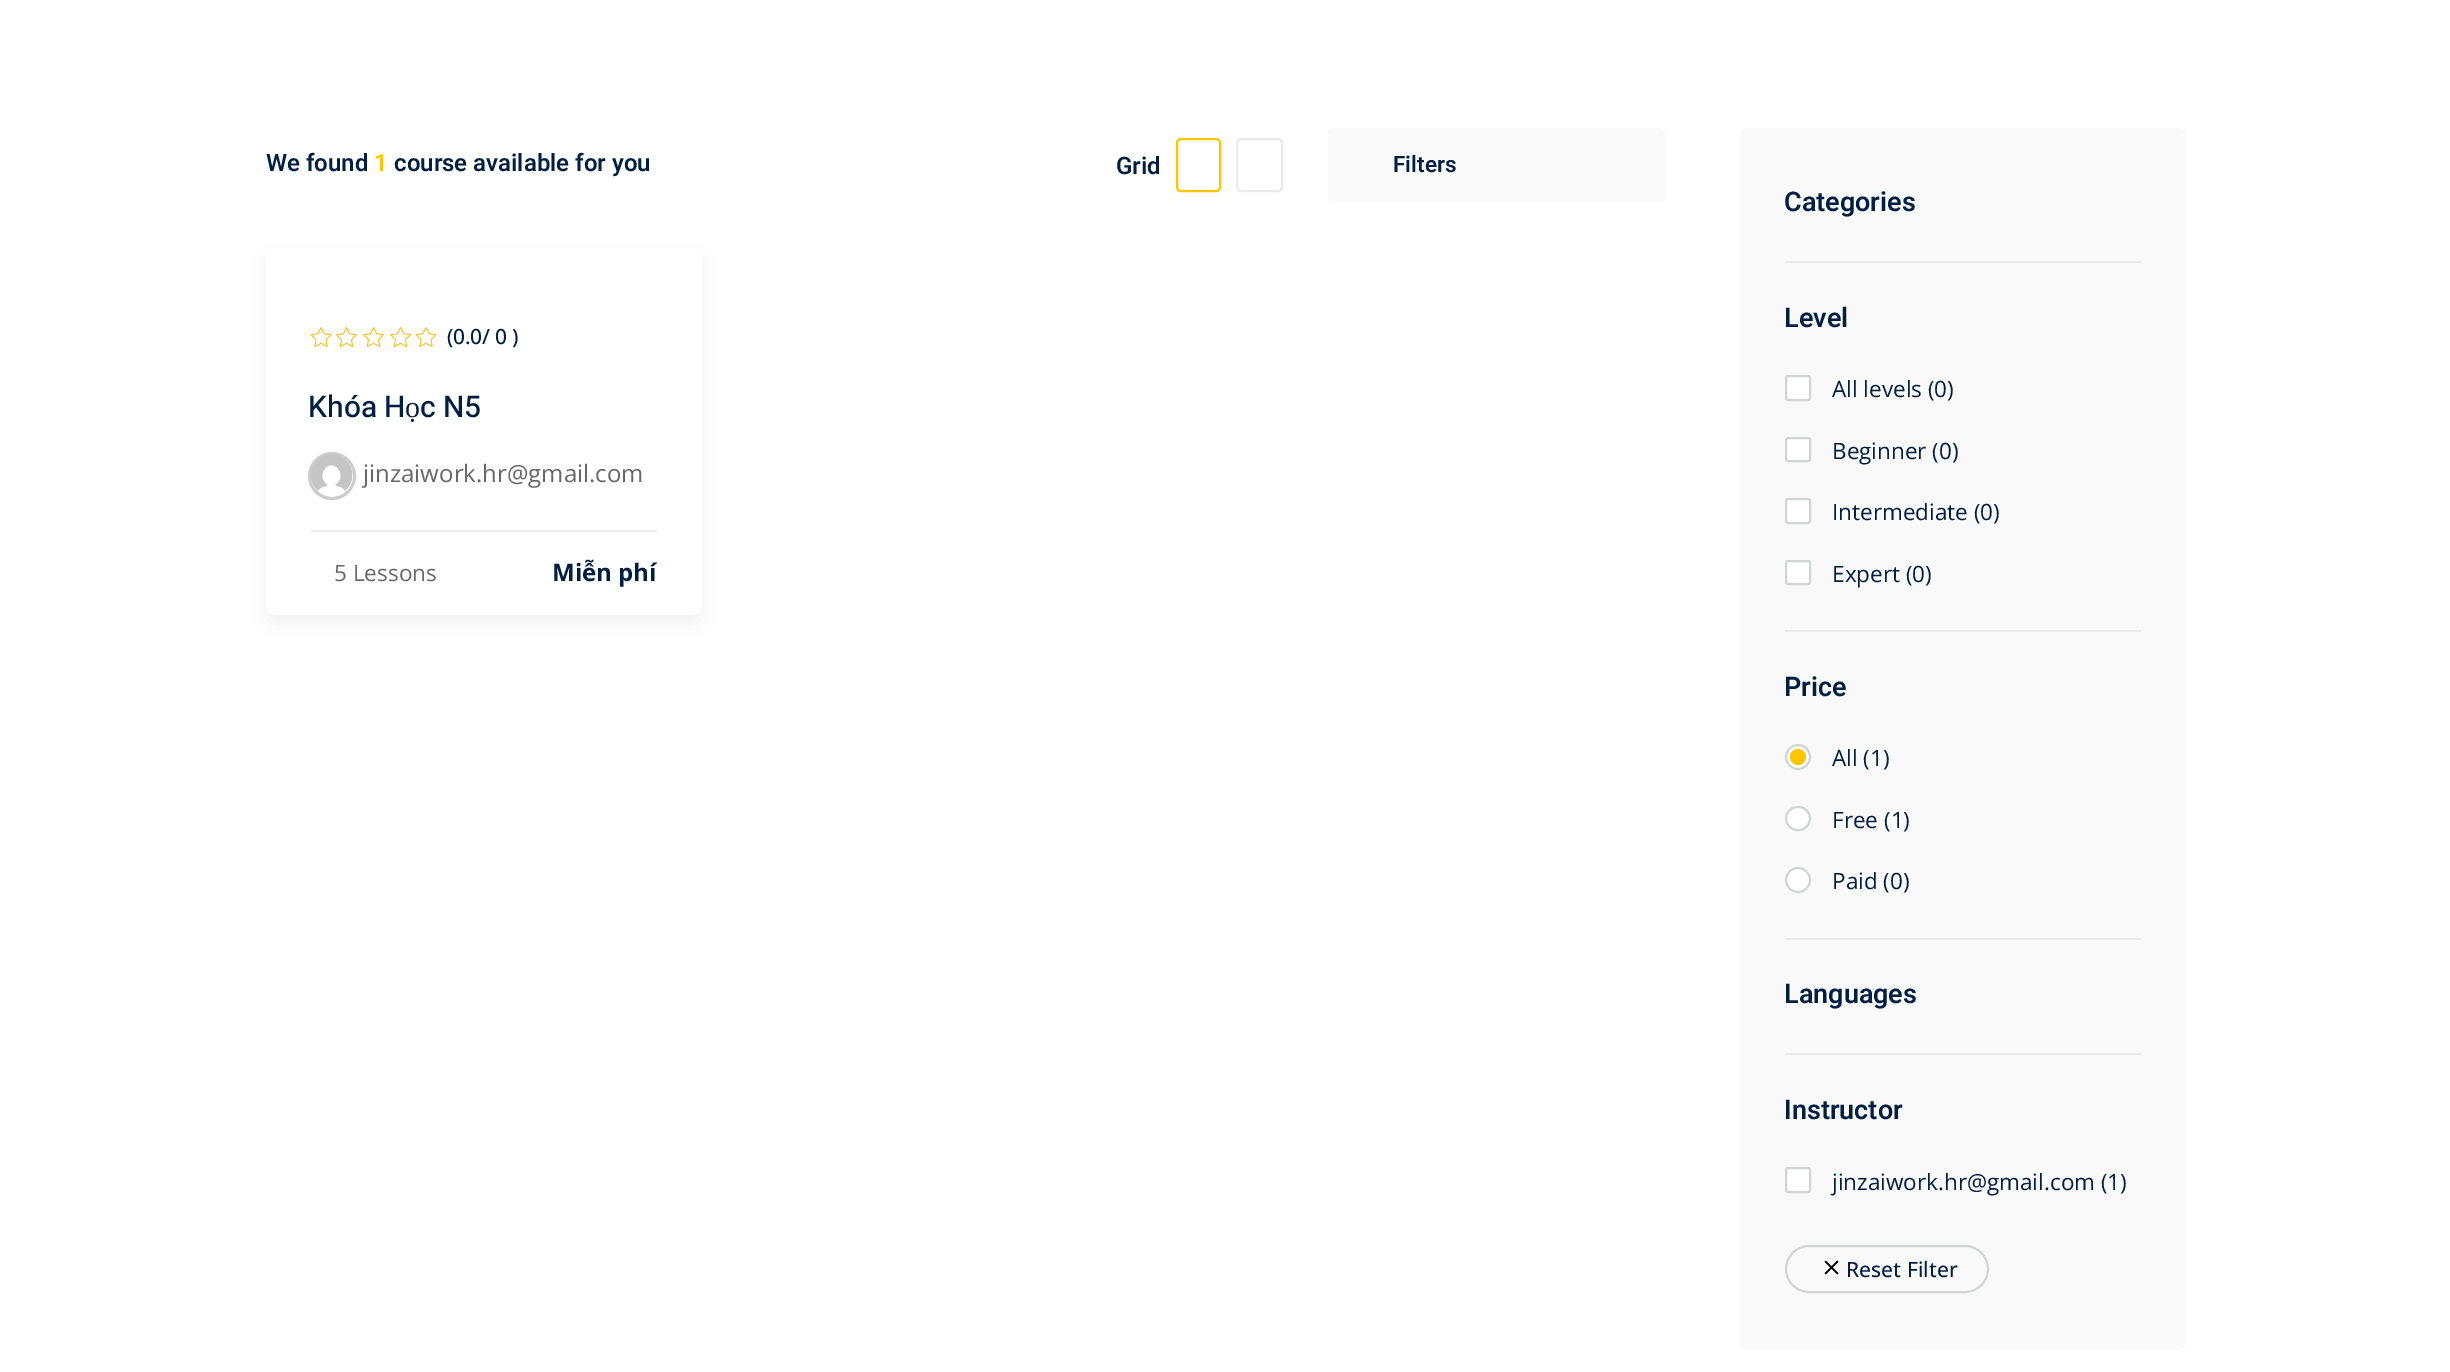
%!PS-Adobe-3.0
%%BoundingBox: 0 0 2450 1372
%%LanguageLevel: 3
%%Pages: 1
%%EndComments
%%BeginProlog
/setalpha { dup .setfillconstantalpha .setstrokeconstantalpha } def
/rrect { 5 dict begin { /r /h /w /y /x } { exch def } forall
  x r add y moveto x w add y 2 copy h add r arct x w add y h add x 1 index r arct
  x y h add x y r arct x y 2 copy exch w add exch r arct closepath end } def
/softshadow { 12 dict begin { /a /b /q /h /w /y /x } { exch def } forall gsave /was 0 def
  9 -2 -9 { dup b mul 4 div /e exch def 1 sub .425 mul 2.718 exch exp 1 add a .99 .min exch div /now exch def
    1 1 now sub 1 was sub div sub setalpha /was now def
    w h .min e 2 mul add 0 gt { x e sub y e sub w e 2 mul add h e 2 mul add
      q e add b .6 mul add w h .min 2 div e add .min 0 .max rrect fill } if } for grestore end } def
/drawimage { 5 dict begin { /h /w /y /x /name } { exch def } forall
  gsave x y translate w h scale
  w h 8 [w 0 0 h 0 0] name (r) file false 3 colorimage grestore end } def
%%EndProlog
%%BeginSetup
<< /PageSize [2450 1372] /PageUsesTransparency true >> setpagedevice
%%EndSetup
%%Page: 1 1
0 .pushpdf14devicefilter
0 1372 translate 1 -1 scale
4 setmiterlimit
1 setgray
0 0 2450 1372 rectfill
1 0.776 0 setrgbcolor
2 setlinewidth
1177 139 43 52 4 rrect stroke
0.922 setgray
1237 139 45 52 4 rrect stroke
0.976 setgray
1328 128 337 75 5 rrect fill
gsave
newpath 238 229 moveto 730 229 lineto 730 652 lineto 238 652 lineto closepath 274 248 moveto 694 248 lineto 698.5 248 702 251.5 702 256 curveto 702 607 lineto 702 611.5 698.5 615 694 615 curveto 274 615 lineto 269.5 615 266 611.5 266 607 curveto 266 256 lineto 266 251.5 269.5 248 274 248 curveto closepath eoclip newpath
0 setgray
266 257 436 367 8 9 0.06 softshadow
grestore
(images/1.raw) 310 327 22 20 drawimage
(images/2.raw) 336 327 21 20 drawimage
(images/2.raw) 363 327 21 20 drawimage
(images/2.raw) 390 327 21 20 drawimage
(images/1.raw) 415 327 22 20 drawimage
0.8 setgray
3 setlinewidth
newpath 332 476 22.5 0 360 arc closepath stroke
(images/3.raw) 311 454 42 37 drawimage
0.922 setgray
311 530 346 2 rectfill
0.976 setgray
1740 128 446 1222 8 rrect fill
0.922 setgray
1785 261 356 2 rectfill
1 setgray
1786 376 24 24 2 rrect gsave fill grestore
0.824 0.835 0.839 setrgbcolor
2 setlinewidth
stroke
1 setgray
1786 438 24 23 2 rrect gsave fill grestore
0.824 0.835 0.839 setrgbcolor
stroke
1 setgray
1786 499 24 24 2 rrect gsave fill grestore
0.824 0.835 0.839 setrgbcolor
stroke
1 setgray
1786 561 24 23 2 rrect gsave fill grestore
0.824 0.835 0.839 setrgbcolor
stroke
0.922 setgray
1785 630 356 2 rectfill
1 setgray
newpath 1798 757 12 0 360 arc closepath gsave fill grestore
0.824 0.835 0.839 setrgbcolor
stroke
1 0.776 0 setrgbcolor
newpath 1798 757 8 0 360 arc closepath fill
1 setgray
1786 807 24 23 11.5 rrect gsave fill grestore
0.824 0.835 0.839 setrgbcolor
stroke
1 setgray
newpath 1798 880 12 0 360 arc closepath gsave fill grestore
0.824 0.835 0.839 setrgbcolor
stroke
0.922 setgray
1785 938 356 2 rectfill
1785 1053 356 2 rectfill
1 setgray
1786 1168 24 24 2 rrect gsave fill grestore
0.824 0.835 0.839 setrgbcolor
stroke
1786 1246 202 46 23 rrect stroke
(images/4.raw) 1824 1260 15 15 drawimage
/Heebo-SemiBold [24 0 0 -24 0 0] selectfont
0.008 0.118 0.251 setrgbcolor
266 171 moveto (We found) show
1 0.776 0 setrgbcolor
374 171 moveto (1) show
0.008 0.118 0.251 setrgbcolor
394 171 moveto (course available for you) show
1116 174 moveto (Grid) show
/Heebo-SemiBold [22.5 0 0 -22.5 0 0] selectfont
1393 172 moveto (Filters) show
/OpenSans-Medium [21 0 0 -21 0 0] selectfont
447 344 moveto -0.25 0 (\(0.0/ 0 \)) ashow
/Heebo-Medium [30 0 0 -30 0 0] selectfont
308 417 moveto (Khóa H) show
/LiberationSerif-Regular [30 0 0 -30 0 0] selectfont
405 417 moveto (ọ) show
/Heebo-Medium [30 0 0 -30 0 0] selectfont
420 417 moveto (c N5) show
/OpenSans-Regular [24 0 0 -24 0 0] selectfont
0.412 0.408 0.408 setrgbcolor
363 482 moveto (jinzaiwork.hr@gmail.com) show
/OpenSans-Regular [22.5 0 0 -22.5 0 0] selectfont
334 581 moveto (5 Lessons) show
/OpenSans-Bold [24 0 0 -24 0 0] selectfont
0.008 0.118 0.251 setrgbcolor
552 581 moveto (Miễn phí) show
/Heebo-SemiBold [27 0 0 -27 0 0] selectfont
1784 211 moveto (Categories) show
1784 327 moveto (Level) show
/OpenSans-Regular [22.5 0 0 -22.5 0 0] selectfont
1832 397 moveto (All levels \(0\)) show
1832 459 moveto (Beginner \(0\)) show
1832 520 moveto (Intermediate \(0\)) show
1832 582 moveto (Expert \(0\)) show
/Heebo-SemiBold [27 0 0 -27 0 0] selectfont
1784 696 moveto (Price) show
/OpenSans-Regular [22.5 0 0 -22.5 0 0] selectfont
1832 766 moveto (All \(1\)) show
1832 828 moveto (Free \(1\)) show
1832 889 moveto (Paid \(0\)) show
/Heebo-SemiBold [27 0 0 -27 0 0] selectfont
1784 1003 moveto (Languages) show
1784 1119 moveto (Instructor) show
/OpenSans-Regular [22.5 0 0 -22.5 0 0] selectfont
1832 1190 moveto (jinzaiwork.hr@gmail.com \(1\)) show
/OpenSans-Medium [21 0 0 -21 0 0] selectfont
1846 1277 moveto (Reset Filter) show
.poppdf14devicefilter showpage
%%EOF
